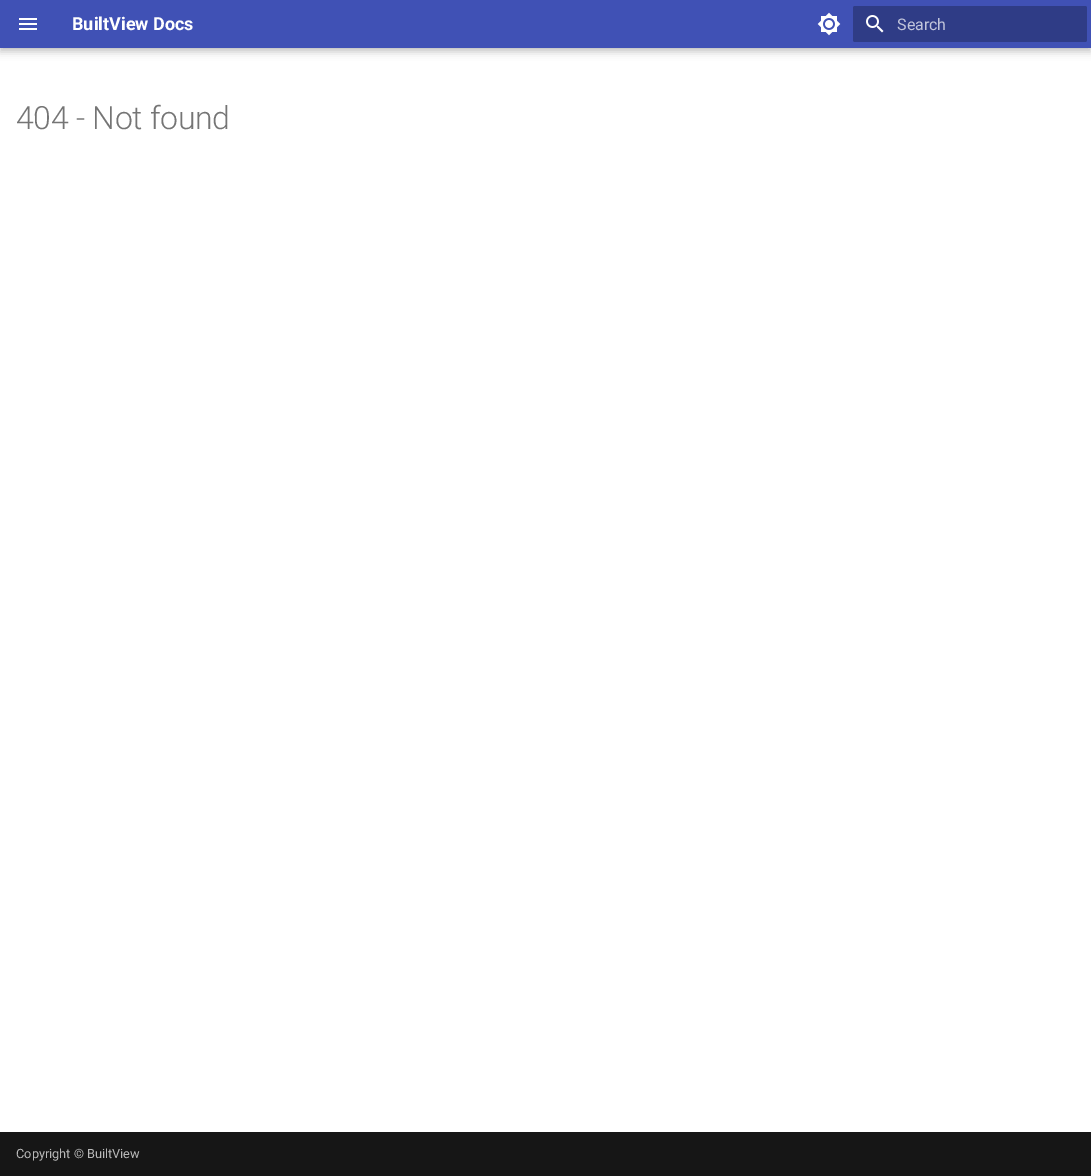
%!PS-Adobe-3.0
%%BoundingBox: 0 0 1091 1176
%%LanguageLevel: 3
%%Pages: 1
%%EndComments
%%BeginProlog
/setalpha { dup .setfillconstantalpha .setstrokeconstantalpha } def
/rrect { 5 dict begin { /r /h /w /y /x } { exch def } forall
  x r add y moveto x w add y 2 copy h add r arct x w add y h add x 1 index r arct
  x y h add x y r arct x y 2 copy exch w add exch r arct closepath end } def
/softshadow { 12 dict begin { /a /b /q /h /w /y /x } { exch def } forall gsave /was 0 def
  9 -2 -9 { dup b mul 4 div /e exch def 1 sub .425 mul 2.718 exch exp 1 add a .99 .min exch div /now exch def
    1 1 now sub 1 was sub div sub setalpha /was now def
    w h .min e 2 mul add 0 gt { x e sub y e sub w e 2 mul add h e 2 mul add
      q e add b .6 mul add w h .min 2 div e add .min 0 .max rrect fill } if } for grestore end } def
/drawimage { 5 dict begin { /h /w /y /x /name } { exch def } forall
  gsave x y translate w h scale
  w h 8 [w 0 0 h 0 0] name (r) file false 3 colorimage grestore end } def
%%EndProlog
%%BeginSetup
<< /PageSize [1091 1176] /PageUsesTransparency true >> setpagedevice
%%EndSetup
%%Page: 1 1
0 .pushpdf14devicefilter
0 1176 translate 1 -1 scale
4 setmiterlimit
1 setgray
0 0 1091 1176 rectfill
0 setgray
0 4 1091 48 0 4 0.2 softshadow
0 0 1091 48 0 2 0.1 softshadow
0.251 0.318 0.71 setrgbcolor
0 0 1091 48 rectfill
(images/1.raw) 19 18 18 12 drawimage
(images/2.raw) 817 12 24 24 drawimage
0.184 0.235 0.525 setrgbcolor
853 6 234 36 2 rrect fill
(images/3.raw) 866 15 18 18 drawimage
0.086 setgray
0 1132 1091 44 rectfill
/Roboto-Bold [18 0 0 -18 0 0] selectfont
1 setgray
72 30 moveto (BuiltView Docs) show
/Roboto-Regular [16 0 0 -16 0 0] selectfont
0.757 0.773 0.859 setrgbcolor
897 30 moveto (Search) show
/Roboto-Light [32 0 0 -32 0 0] selectfont
0.459 setgray
16 129 moveto -0.3 0 (404 - Not found) ashow
/Roboto-Regular [12.75 0 0 -12.75 0 0] selectfont
0.725 setgray
16 1158 moveto (Copyright © BuiltView) show
.poppdf14devicefilter showpage
%%EOF
